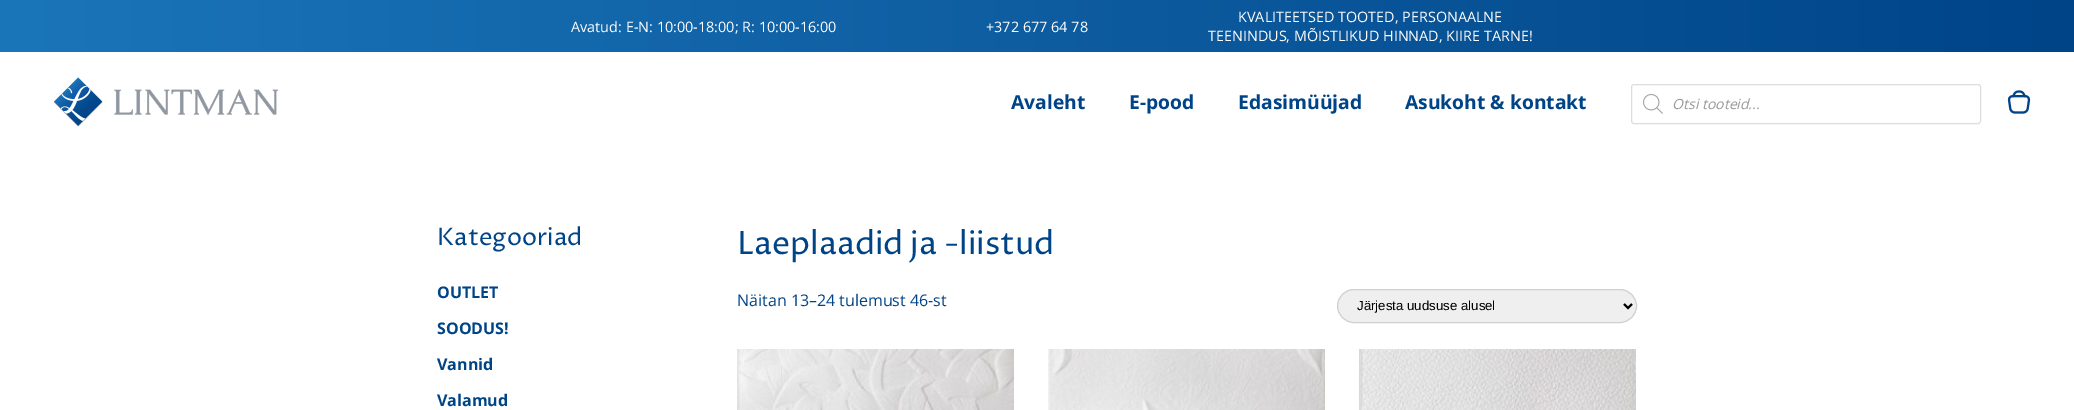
%!PS-Adobe-3.0
%%BoundingBox: 0 0 2074 410
%%LanguageLevel: 3
%%Pages: 1
%%EndComments
%%BeginProlog
/rrect { 5 dict begin { /r /h /w /y /x } { exch def } forall
  x r add y moveto x w add y 2 copy h add r arct x w add y h add x 1 index r arct
  x y h add x y r arct x y 2 copy exch w add exch r arct closepath end } def
/drawimage { 5 dict begin { /h /w /y /x /name } { exch def } forall
  gsave x y translate w h scale
  w h 8 [w 0 0 h 0 0] name (r) file false 3 colorimage grestore end } def
%%EndProlog
%%BeginSetup
<< /PageSize [2074 410] >> setpagedevice
%%EndSetup
%%Page: 1 1
0 410 translate 1 -1 scale
4 setmiterlimit
1 setgray
0 0 2074 410 rectfill
gsave newpath 0 0 moveto 2074 0 lineto 2074 52 lineto 0 52 lineto closepath clip newpath
<< /ShadingType 2 /ColorSpace /DeviceRGB /Coords [0 26 2074 26] /Extend [true true] /Function << /FunctionType 2 /Domain [0 1] /C0 [0.106 0.459 0.725] /C1 [0 0.267 0.533] /N 1 >> >> shfill grestore
(images/1.raw) 54 77 224 50 drawimage
0.867 setgray
1631.5 84.5 349 39 2.5 rrect stroke
(images/2.raw) 1643 94 20 20 drawimage
(images/3.raw) 2007 90 24 24 drawimage
0.937 setgray
1337.5 289.5 299 33 16.5 rrect gsave fill grestore
0.827 0.808 0.824 setrgbcolor
stroke
0 setgray
2 setlinewidth
newpath 1624 304 moveto 1628 308 lineto 1632 304 lineto stroke
(images/4.raw) 737 349 277 61 drawimage
(images/5.raw) 1048 349 277 61 drawimage
(images/6.raw) 1359 349 277 61 drawimage
/OpenSans-Regular [14.4 0 0 -14.4 0 0] selectfont
1 setgray
571 32 moveto (Avatud: E-N: 10:00-18:00; R: 10:00-16:00) show
986 32 moveto (+372 677 64 78) show
1238 22 moveto (KVALITEETSED TOOTED, PERSONAALNE) show
1208 41 moveto (TEENINDUS, MÕISTLIKUD HINNAD, KIIRE TARNE!) show
/OpenSans-Bold [19.25 0 0 -19.25 0 0] selectfont
0 0.267 0.533 setrgbcolor
1011 109 moveto (Avaleht) show
1129 109 moveto (E-pood) show
1238 109 moveto (Edasimüüjad) show
1405 109 moveto (Asukoht & kontakt) show
/OpenSans-Italic [14 0 0 -14 0 0] selectfont
0.6 setgray
1672 109 moveto (Otsi tooteid...) show
/ProzaLibre-Regular [24 0 0 -24 0 0] selectfont
0 0.267 0.533 setrgbcolor
437 245 moveto (Kategooriad) show
/OpenSans-Bold [16 0 0 -16 0 0] selectfont
437 298 moveto (OUTLET) show
437 334 moveto (SOODUS!) show
437 370 moveto (Vannid) show
437 406 moveto (Valamud) show
/ProzaLibre-Regular [32 0 0 -32 0 0] selectfont
737 254 moveto (Laeplaadid ja -liistud) show
/OpenSans-Regular [16 0 0 -16 0 0] selectfont
737 306 moveto (Näitan 13–24 tulemust 46-st) show
/LiberationSans-Regular [13.25 0 0 -13.25 0 0] selectfont
0 setgray
1357 310 moveto (Järjesta uudsuse alusel) show
showpage
%%EOF
